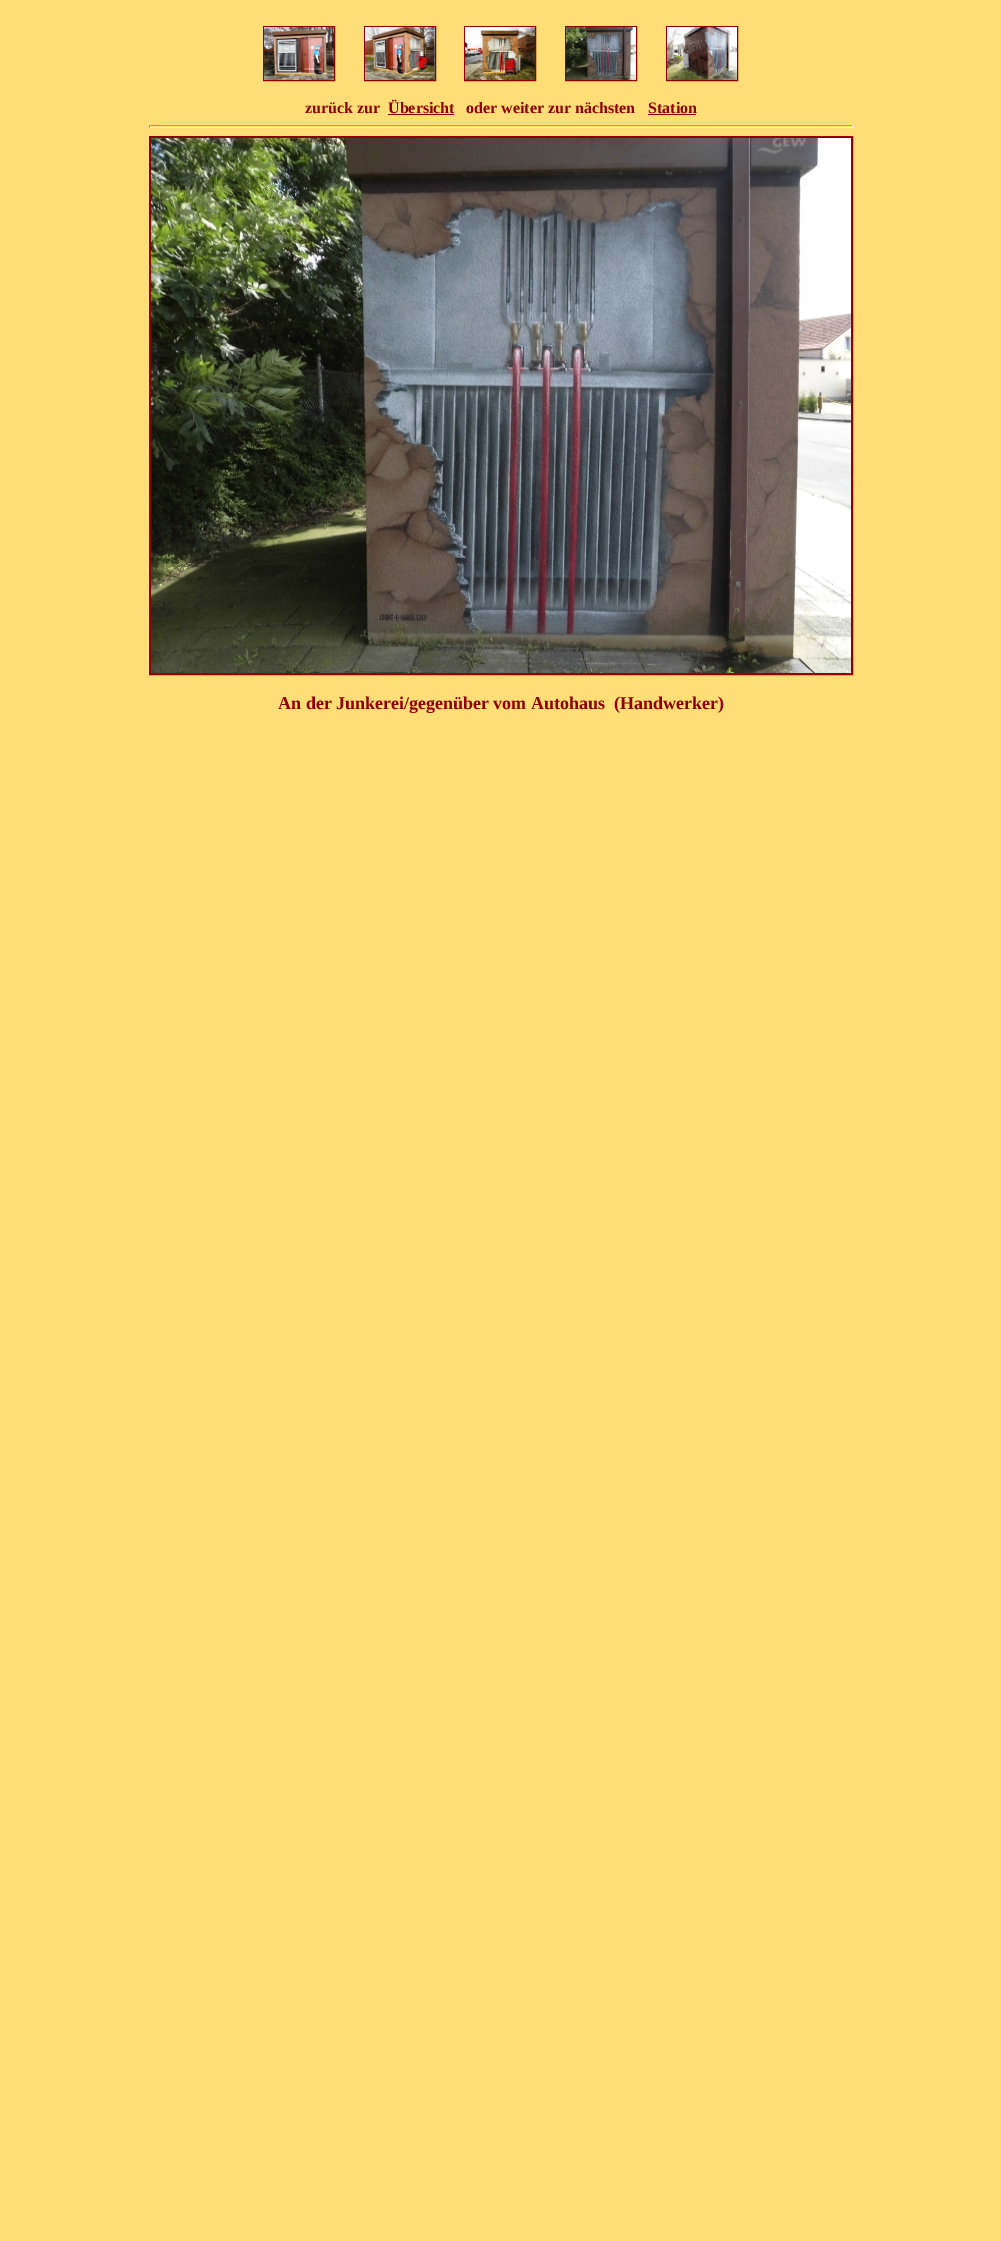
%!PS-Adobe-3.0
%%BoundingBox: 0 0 1001 2241
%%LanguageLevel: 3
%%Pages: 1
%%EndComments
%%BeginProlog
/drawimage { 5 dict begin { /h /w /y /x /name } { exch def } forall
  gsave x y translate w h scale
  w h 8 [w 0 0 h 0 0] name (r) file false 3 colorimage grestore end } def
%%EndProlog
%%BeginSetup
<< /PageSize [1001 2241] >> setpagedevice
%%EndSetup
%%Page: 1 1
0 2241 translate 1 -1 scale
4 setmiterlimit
1 0.867 0.467 setrgbcolor
0 0 1001 2241 rectfill
0.565 0 0 setrgbcolor
263.5 26.5 71 54 rectstroke
(images/1.raw) 264 27 70 53 drawimage
364.5 26.5 71 54 rectstroke
(images/2.raw) 365 27 70 53 drawimage
464.5 26.5 71 54 rectstroke
(images/3.raw) 465 27 70 53 drawimage
565.5 26.5 71 54 rectstroke
(images/4.raw) 566 27 70 53 drawimage
666.5 26.5 71 54 rectstroke
(images/5.raw) 667 27 70 53 drawimage
388 114 66 1 rectfill
648 114 48 1 rectfill
0.624 setgray
149 125 704 1 rectfill
0.933 setgray
852 125 1 3 rectfill
149 127 704 1 rectfill
0.624 setgray
149 125 1 3 rectfill
0.565 0 0 setrgbcolor
2 setlinewidth
150 137 702 537 rectstroke
(images/6.raw) 151 138 700 535 drawimage
/LiberationSerif-Bold [16 0 0 -16 0 0] selectfont
305 113 moveto (zurück zur) show
388 113 moveto (Übersicht) show
466 113 moveto (oder weiter zur nächsten) show
648 113 moveto (Station) show
/LiberationSerif-Bold [18 0 0 -18 0 0] selectfont
278 709 moveto (An der Junkerei/gegenüber vom Autohaus  \(Handwerker\)) show
showpage
%%EOF
